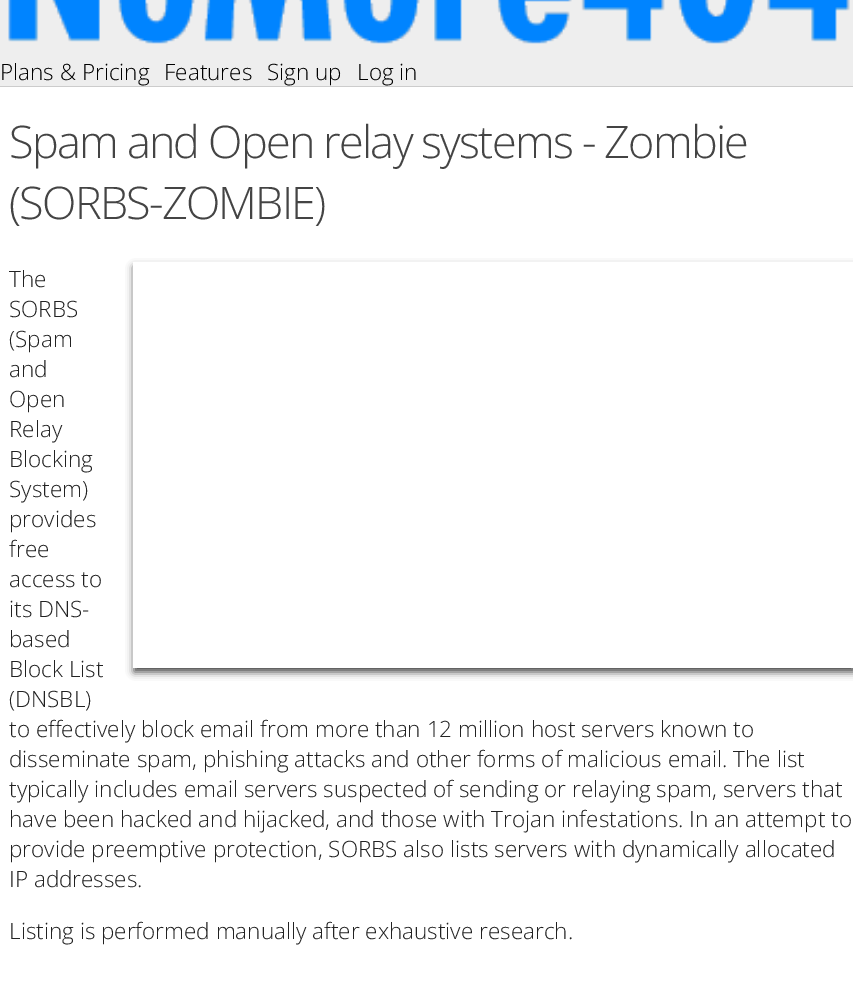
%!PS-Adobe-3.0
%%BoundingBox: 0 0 853 983
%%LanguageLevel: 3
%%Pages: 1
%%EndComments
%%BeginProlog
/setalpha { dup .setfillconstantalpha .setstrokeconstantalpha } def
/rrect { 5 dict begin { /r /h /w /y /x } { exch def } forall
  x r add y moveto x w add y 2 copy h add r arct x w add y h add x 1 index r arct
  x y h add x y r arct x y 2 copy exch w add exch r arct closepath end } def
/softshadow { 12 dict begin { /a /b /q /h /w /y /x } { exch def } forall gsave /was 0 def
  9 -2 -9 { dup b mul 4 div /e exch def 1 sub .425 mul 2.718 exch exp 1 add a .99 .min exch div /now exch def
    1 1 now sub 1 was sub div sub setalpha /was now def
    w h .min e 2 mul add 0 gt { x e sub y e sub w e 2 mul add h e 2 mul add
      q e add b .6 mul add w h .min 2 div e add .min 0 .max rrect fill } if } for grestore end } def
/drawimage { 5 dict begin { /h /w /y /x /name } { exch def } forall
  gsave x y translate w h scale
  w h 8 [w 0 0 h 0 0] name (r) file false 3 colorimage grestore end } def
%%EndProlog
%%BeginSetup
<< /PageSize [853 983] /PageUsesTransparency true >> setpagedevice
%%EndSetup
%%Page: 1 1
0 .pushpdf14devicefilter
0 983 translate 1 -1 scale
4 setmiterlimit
0.933 setgray
0 0 853 983 rectfill
0.8 setgray
0 86 853 1 rectfill
(images/1.raw) 8 0 842 44 drawimage
1 setgray
0 87 853 896 rectfill
0.267 setgray
134 267 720 405 0 4 1 softshadow
1 setgray
133 262 720 406 rectfill
/OpenSans-Light [22.5 0 0 -22.5 0 0] selectfont
0 setgray
0 80 moveto (Plans & Pricing) show
164 80 moveto (Features) show
267 80 moveto (Sign up) show
357 80 moveto (Log in) show
/OpenSans-Light [45 0 0 -45 0 0] selectfont
0.267 setgray
9 158 moveto -1.8 0 (Spam and Open relay systems - Zombie) ashow
9 219 moveto -1.8 0 (\(SORBS-ZOMBIE\)) ashow
/OpenSans-Light [22.5 0 0 -22.5 0 0] selectfont
0.133 setgray
9 287 moveto (The) show
9 317 moveto (SORBS) show
9 347 moveto (\(Spam) show
9 377 moveto (and) show
9 407 moveto (Open) show
9 437 moveto (Relay) show
9 467 moveto (Blocking) show
9 497 moveto (System\)) show
9 527 moveto (provides) show
9 557 moveto (free) show
9 587 moveto (access to) show
9 617 moveto (its DNS-) show
9 647 moveto (based) show
9 677 moveto (Block List) show
9 707 moveto (\(DNSBL\)) show
9 737 moveto (to effectively block email from more than 12 million host servers known to) show
9 767 moveto (disseminate spam, phishing attacks and other forms of malicious email. The list) show
9 797 moveto (typically includes email servers suspected of sending or relaying spam, servers that) show
9 827 moveto (have been hacked and hijacked, and those with Trojan infestations. In an attempt to) show
9 857 moveto (provide preemptive protection, SORBS also lists servers with dynamically allocated) show
9 887 moveto (IP addresses.) show
9 939 moveto (Listing is performed manually after exhaustive research.) show
.poppdf14devicefilter showpage
%%EOF
